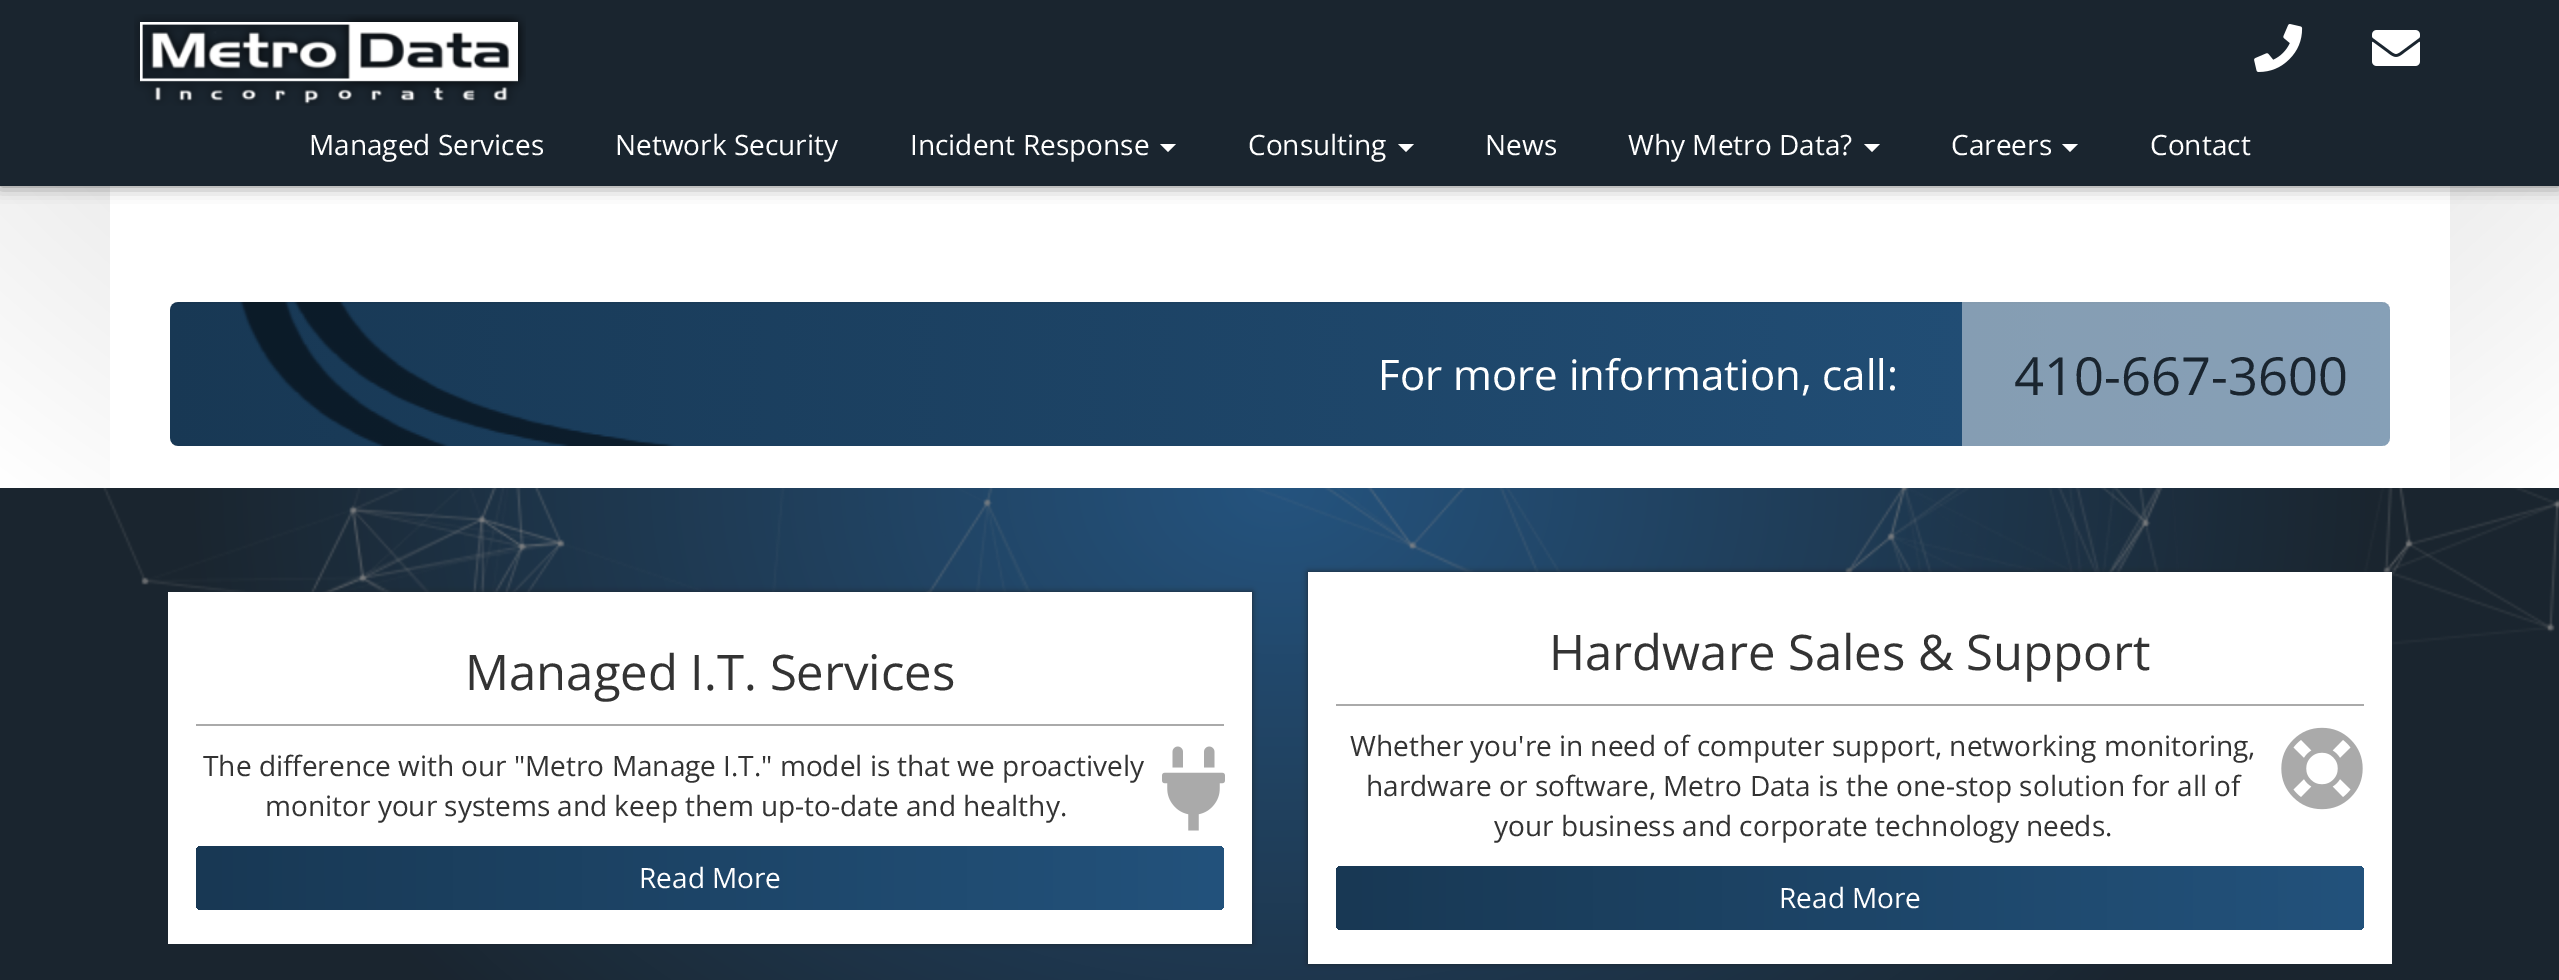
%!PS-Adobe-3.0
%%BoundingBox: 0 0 2559 980
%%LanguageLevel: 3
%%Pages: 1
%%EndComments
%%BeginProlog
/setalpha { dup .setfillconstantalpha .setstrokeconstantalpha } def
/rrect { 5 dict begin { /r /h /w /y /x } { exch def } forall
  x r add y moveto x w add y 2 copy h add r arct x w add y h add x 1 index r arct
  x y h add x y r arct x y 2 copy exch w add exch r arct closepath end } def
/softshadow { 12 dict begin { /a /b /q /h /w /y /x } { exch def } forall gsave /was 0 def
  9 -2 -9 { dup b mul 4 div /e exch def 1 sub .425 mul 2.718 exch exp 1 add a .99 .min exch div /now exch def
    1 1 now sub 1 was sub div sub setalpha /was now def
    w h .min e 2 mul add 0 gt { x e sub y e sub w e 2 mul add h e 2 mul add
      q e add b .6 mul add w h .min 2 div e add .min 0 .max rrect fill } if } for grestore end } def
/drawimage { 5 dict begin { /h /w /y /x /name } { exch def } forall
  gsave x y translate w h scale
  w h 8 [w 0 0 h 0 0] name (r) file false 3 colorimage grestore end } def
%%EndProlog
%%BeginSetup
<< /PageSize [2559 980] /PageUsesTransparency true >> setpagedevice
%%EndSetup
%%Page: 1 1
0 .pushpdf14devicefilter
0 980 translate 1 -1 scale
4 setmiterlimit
1 setgray
0 0 2559 980 rectfill
gsave newpath 0 186 moveto 2559 186 lineto 2559 488 lineto 0 488 lineto closepath clip newpath 1280 -416 translate 1810 1278 scale
<< /ShadingType 3 /ColorSpace /DeviceRGB /Coords [0 0 0 0 0 1] /Extend [true true] /Function << /FunctionType 2 /Domain [0 1] /C0 [0.667 0.667 0.667] /C1 [1 1 1] /N 1 >> >> shfill grestore
110 186 2340 302 rectfill
0 setgray
0 0 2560 186 0 8 0.5 softshadow
0.102 0.145 0.184 setrgbcolor
0 0 2559 186 rectfill
(images/1.raw) 134 14 392 92 drawimage
(images/2.raw) 2254 24 49 48 drawimage
(images/3.raw) 2372 30 48 36 drawimage
1 setgray
newpath 1160 144 moveto 1176 144 lineto 1168 152 lineto closepath fill
newpath 1398 144 moveto 1414 144 lineto 1406 152 lineto closepath fill
newpath 1864 144 moveto 1880 144 lineto 1872 152 lineto closepath fill
newpath 2062 144 moveto 2078 144 lineto 2070 152 lineto closepath fill
(images/4.raw) 170 302 2220 144 drawimage
0.05 setalpha
0 setgray
newpath 178 304 moveto 2382 304 lineto 2386 304 2390 308 2390 312 curveto 2390 307 2388 302 2382 302 curveto 178 302 lineto 172 302 170 307 170 312 curveto 170 308 174 304 178 304 curveto closepath fill
0.45 setalpha
1 setgray
newpath 1962 302 moveto 2382 302 lineto 2386.5 302 2390 305.5 2390 310 curveto 2390 438 lineto 2390 442.5 2386.5 446 2382 446 curveto 1962 446 lineto closepath fill
1 setalpha
gsave newpath 0 488 moveto 2559 488 lineto 2559 980 lineto 0 980 lineto closepath clip newpath 1280 488 translate 1810 1329 scale
<< /ShadingType 3 /ColorSpace /DeviceRGB /Coords [0 0 0 0 0 1] /Extend [true true] /Function << /FunctionType 3 /Domain [0 1] /Functions [<< /FunctionType 2 /Domain [0 1] /C0 [0.141 0.325 0.494] /C1 [0.102 0.145 0.184] /N 1 >> << /FunctionType 2 /Domain [0 1] /C0 [0.102 0.145 0.184] /C1 [0.102 0.145 0.184] /N 1 >>] /Bounds [0.6] /Encode [0 1 0 1] >> >> shfill grestore
(images/5.raw) 103 488 2456 157 drawimage
0.102 0.145 0.184 setrgbcolor
168 592 1084 352 0 3 1 softshadow
1 setgray
168 592 1084 352 rectfill
0.667 setgray
196 724 1028 2 rectfill
(images/6.raw) 1162 746 63 85 drawimage
gsave 196 846 1028 64 6 rrect clip newpath
<< /ShadingType 2 /ColorSpace /DeviceRGB /Coords [196 878 1224 878] /Extend [true true] /Function << /FunctionType 2 /Domain [0 1] /C0 [0.094 0.22 0.329] /C1 [0.137 0.322 0.486] /N 1 >> >> shfill grestore
0.102 0.145 0.184 setrgbcolor
1308 572 1084 392 0 3 1 softshadow
1 setgray
1308 572 1084 392 rectfill
0.667 setgray
1336 704 1028 2 rectfill
(images/7.raw) 2281 727 82 83 drawimage
gsave 1336 866 1028 64 6 rrect clip newpath
<< /ShadingType 2 /ColorSpace /DeviceRGB /Coords [1336 898 2364 898] /Extend [true true] /Function << /FunctionType 2 /Domain [0 1] /C0 [0.094 0.22 0.329] /C1 [0.137 0.322 0.486] /N 1 >> >> shfill grestore
/OpenSans-Regular [28 0 0 -28 0 0] selectfont
1 setgray
309 155 moveto (Managed Services) show
615 155 moveto (Network Security) show
910 155 moveto (Incident Response) show
1248 155 moveto (Consulting) show
1485 155 moveto (News) show
1628 155 moveto (Why Metro Data?) show
1951 155 moveto (Careers) show
2150 155 moveto (Contact) show
/OpenSans-Regular [42 0 0 -42 0 0] selectfont
1378 390 moveto (For more information, call:) show
/OpenSans-Regular [52.5 0 0 -52.5 0 0] selectfont
0.102 0.145 0.184 setrgbcolor
2014 395 moveto (410-667-3600) show
/OpenSans-Regular [49 0 0 -49 0 0] selectfont
0.2 setgray
465 690 moveto (Managed I.T. Services) show
/OpenSans-Regular [28 0 0 -28 0 0] selectfont
203 776 moveto (The difference with our "Metro Manage I.T." model is that we proactively) show
265 816 moveto (monitor your systems and keep them up-to-date and healthy.) show
1 setgray
639 888 moveto (Read More) show
/OpenSans-Regular [49 0 0 -49 0 0] selectfont
0.2 setgray
1549 670 moveto (Hardware Sales & Support) show
/OpenSans-Regular [28 0 0 -28 0 0] selectfont
1350 756 moveto (Whether you're in need of computer support, networking monitoring,) show
1366 796 moveto (hardware or software, Metro Data is the one-stop solution for all of) show
1494 836 moveto (your business and corporate technology needs.) show
1 setgray
1779 908 moveto (Read More) show
.poppdf14devicefilter showpage
%%EOF
